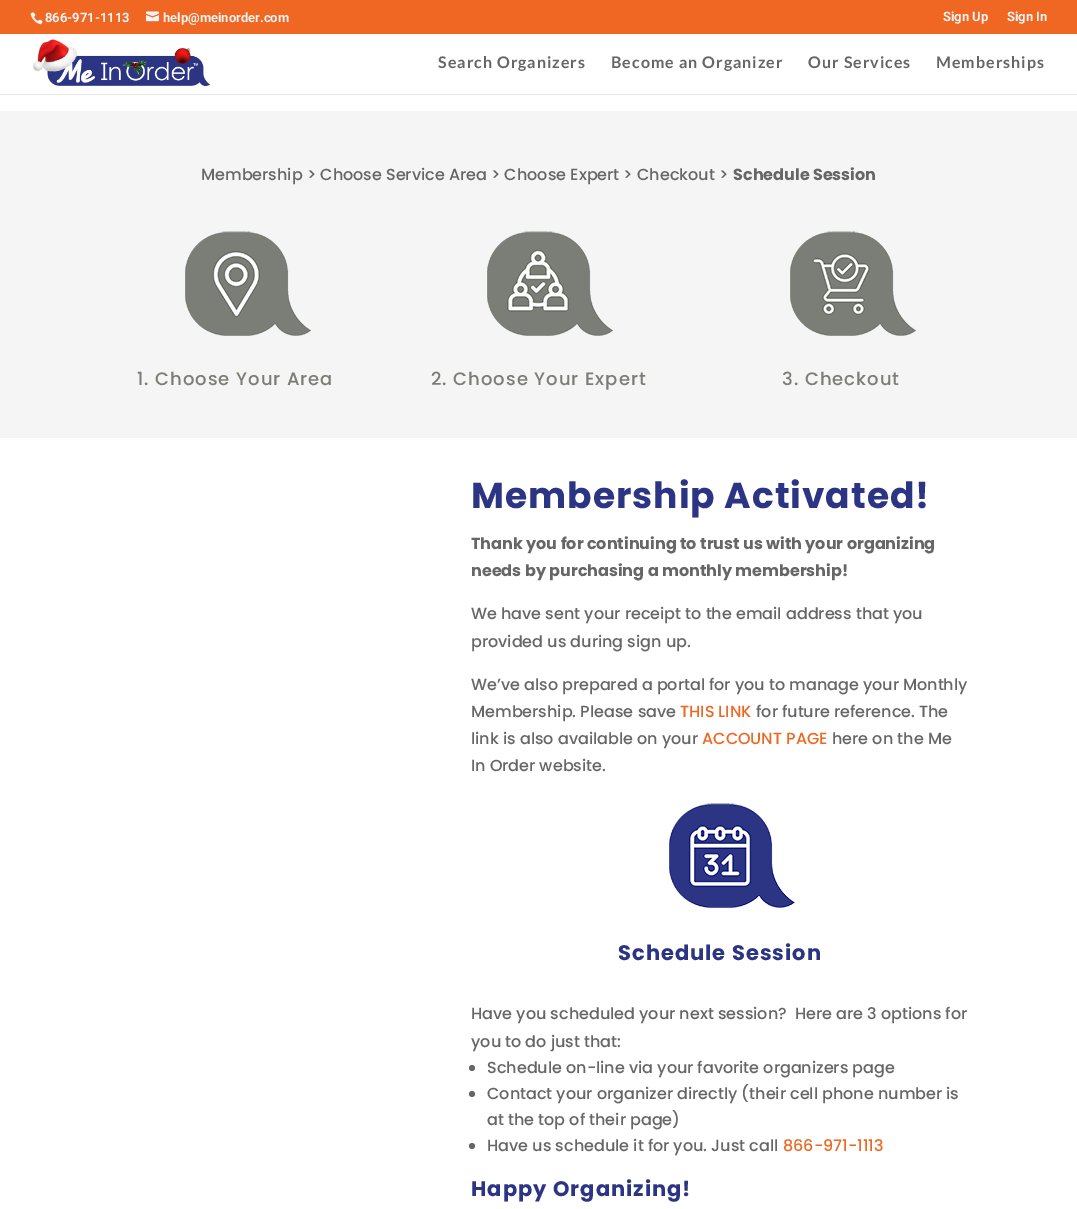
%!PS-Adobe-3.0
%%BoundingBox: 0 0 1077 1209
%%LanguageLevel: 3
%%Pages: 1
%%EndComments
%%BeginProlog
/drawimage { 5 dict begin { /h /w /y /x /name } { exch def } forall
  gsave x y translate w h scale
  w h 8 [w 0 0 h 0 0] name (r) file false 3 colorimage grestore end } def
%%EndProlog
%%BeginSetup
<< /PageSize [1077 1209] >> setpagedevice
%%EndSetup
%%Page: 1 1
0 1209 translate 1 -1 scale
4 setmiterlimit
1 setgray
0 0 1077 1209 rectfill
0.941 0.404 0.137 setrgbcolor
0 0 1077 34 rectfill
(images/1.raw) 30 12 13 13 drawimage
(images/2.raw) 146 11 13 11 drawimage
0.902 setgray
0 94 1077 1 rectfill
(images/3.raw) 33 39 177 47 drawimage
0.961 setgray
0 111 1077 327 rectfill
(images/4.raw) 185 231 126 105 drawimage
(images/5.raw) 487 231 126 105 drawimage
(images/6.raw) 790 231 126 105 drawimage
(images/7.raw) 669 803 126 105 drawimage
0.4 setgray
newpath 472 1068 3 0 360 arc closepath fill
newpath 472 1094 3 0 360 arc closepath fill
newpath 472 1146 3 0 360 arc closepath fill
/Roboto-Bold [13 0 0 -13 0 0] selectfont
0.957 setgray
45 22 moveto (866-971-1113) show
163 22 moveto (help@meinorder.com) show
943 21 moveto (Sign Up) show
1007 21 moveto (Sign In) show
/Lato-Bold [16 0 0 -16 0 0] selectfont
0.4 setgray
438 68 moveto 1 0 (Search Organizers) ashow
611 68 moveto 1 0 (Become an Organizer) ashow
808 68 moveto 1 0 (Our Services) ashow
936 68 moveto 1 0 (Memberships) ashow
/Poppins-Medium [16 0 0 -16 0 0] selectfont
201 180 moveto (Membership > Choose Service Area > Choose Expert > Checkout >) show
/Poppins-Bold [16 0 0 -16 0 0] selectfont
733 180 moveto (Schedule Session) show
/Poppins-Medium [18 0 0 -18 0 0] selectfont
0.486 0.49 0.459 setrgbcolor
137 385 moveto 1 0 (1. Choose Your Area) ashow
431 385 moveto 1 0 (2. Choose Your Expert) ashow
782 385 moveto 1 0 (3. Checkout) ashow
/Poppins-Bold [36 0 0 -36 0 0] selectfont
0.173 0.208 0.518 setrgbcolor
471 508 moveto 1 0 (Membership Activated!) ashow
/Poppins-Bold [16 0 0 -16 0 0] selectfont
0.4 setgray
471 549 moveto (Thank you for continuing to trust us with your organizing) show
471 576 moveto (needs by purchasing a monthly membership!) show
/Poppins-Medium [16 0 0 -16 0 0] selectfont
471 619 moveto (We have sent your receipt to the email address that you) show
471 647 moveto (provided us during sign up.) show
471 690 moveto (We’ve also prepared a portal for you to manage your Monthly) show
471 717 moveto (Membership. Please save) show
0.941 0.404 0.137 setrgbcolor
680 717 moveto (THIS LINK) show
0.4 setgray
756 717 moveto (for future reference. The) show
471 744 moveto (link is also available on your) show
0.941 0.404 0.137 setrgbcolor
702 744 moveto (ACCOUNT PAGE) show
0.4 setgray
832 744 moveto (here on the Me) show
471 771 moveto (In Order website.) show
/Poppins-Bold [21 0 0 -21 0 0] selectfont
0.173 0.208 0.518 setrgbcolor
618 960 moveto 1 0 (Schedule Session) ashow
/Poppins-Medium [16 0 0 -16 0 0] selectfont
0.4 setgray
471 1019 moveto (Have you scheduled your next session?  Here are 3 options for) show
471 1047 moveto (you to do just that:) show
487 1073 moveto (Schedule on-line via your favorite organizers page) show
487 1099 moveto (Contact your organizer directly \(their cell phone number is) show
487 1125 moveto (at the top of their page\)) show
487 1151 moveto (Have us schedule it for you. Just call) show
0.941 0.404 0.137 setrgbcolor
783 1151 moveto (866-971-1113) show
/Poppins-Bold [21 0 0 -21 0 0] selectfont
0.173 0.208 0.518 setrgbcolor
471 1196 moveto 1 0 (Happy Organizing!) ashow
showpage
%%EOF
